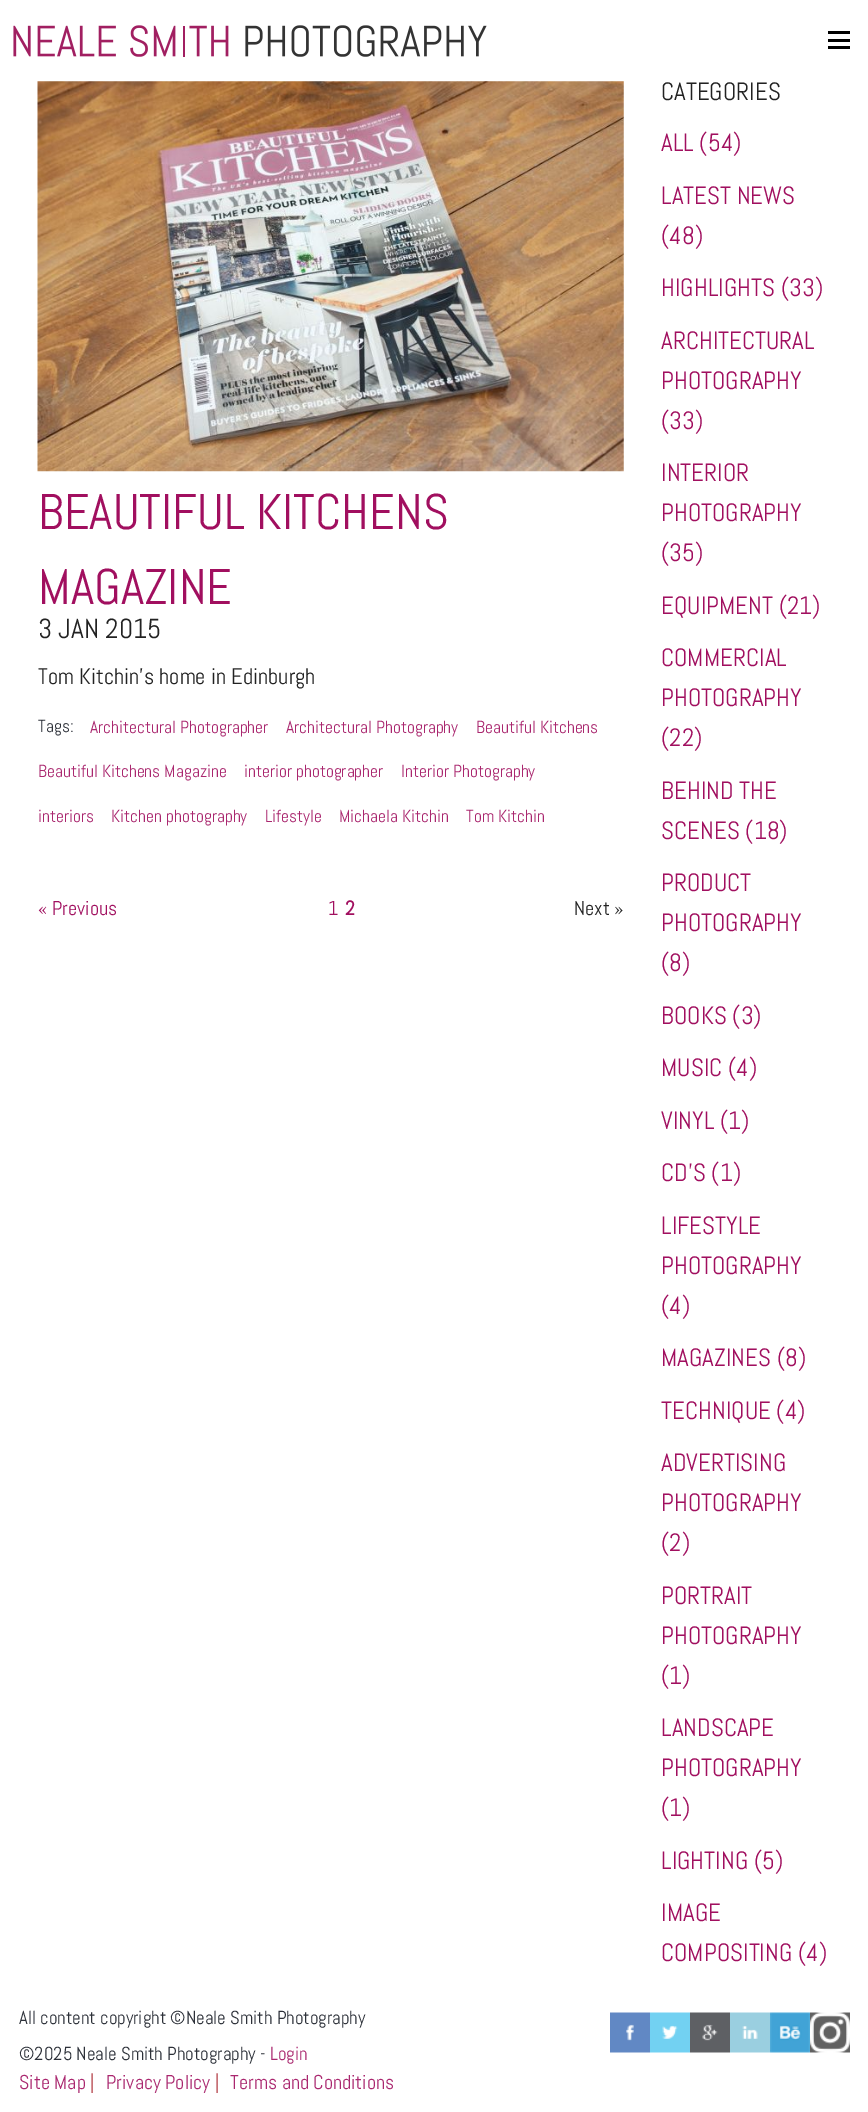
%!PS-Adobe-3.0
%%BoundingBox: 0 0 868 2112
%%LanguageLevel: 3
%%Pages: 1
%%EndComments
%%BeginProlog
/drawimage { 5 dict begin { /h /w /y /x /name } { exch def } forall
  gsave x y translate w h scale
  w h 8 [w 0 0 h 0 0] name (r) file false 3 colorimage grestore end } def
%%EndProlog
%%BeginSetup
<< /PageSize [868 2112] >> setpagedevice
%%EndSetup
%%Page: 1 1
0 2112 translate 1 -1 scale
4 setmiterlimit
1 setgray
0 0 868 2112 rectfill
(images/1.raw) 13 25 474 32 drawimage
0 setgray
828 46 22 3 rectfill
828 39 22 3 rectfill
828 31 22 3 rectfill
(images/2.raw) 37 81 587 391 drawimage
(images/3.raw) 610 2012 40 41 drawimage
(images/4.raw) 650 2012 40 41 drawimage
(images/5.raw) 690 2012 40 41 drawimage
(images/6.raw) 730 2012 40 41 drawimage
(images/7.raw) 770 2012 40 41 drawimage
(images/8.raw) 810 2012 40 41 drawimage
/Abel-Regular [50 0 0 -50 0 0] selectfont
0.631 0.059 0.373 setrgbcolor
38 529 moveto (BEAUTIFUL KITCHENS) show
38 604 moveto (MAGAZINE) show
/Abel-Regular [27.5 0 0 -27.5 0 0] selectfont
0.133 setgray
38 638 moveto (3 JAN 2015) show
/Abel-Regular [22.5 0 0 -22.5 0 0] selectfont
38 684 moveto (Tom Kitchin's home in Edinburgh) show
/Abel-Regular [17.5 0 0 -17.5 0 0] selectfont
0.176 0.192 0.224 setrgbcolor
38 732 moveto (Tags:) show
0.667 0.153 0.435 setrgbcolor
90 733 moveto (Architectural Photographer) show
286 733 moveto (Architectural Photography) show
476 733 moveto (Beautiful Kitchens) show
38 777 moveto (Beautiful Kitchens Magazine) show
244 777 moveto (interior photographer) show
401 777 moveto (Interior Photography) show
38 822 moveto (interiors) show
111 822 moveto (Kitchen photography) show
265 822 moveto (Lifestyle) show
339 822 moveto (Michaela Kitchin) show
466 822 moveto (Tom Kitchin) show
/Abel-Regular [20 0 0 -20 0 0] selectfont
0.631 0.059 0.373 setrgbcolor
38 915 moveto (« Previous) show
328 915 moveto (1) show
/Abel-Bold [20 0 0 -20 0 0] selectfont
345 915 moveto (2) show
/Abel-Regular [20 0 0 -20 0 0] selectfont
0.133 setgray
574 915 moveto (Next ») show
/Abel-Regular [25 0 0 -25 0 0] selectfont
661 100 moveto (CATEGORIES) show
0.631 0.059 0.373 setrgbcolor
661 151 moveto (ALL \(54\)) show
661 204 moveto (LATEST NEWS) show
661 244 moveto (\(48\)) show
661 296 moveto (HIGHLIGHTS \(33\)) show
661 349 moveto (ARCHITECTURAL) show
661 389 moveto (PHOTOGRAPHY) show
661 429 moveto (\(33\)) show
661 481 moveto (INTERIOR) show
661 521 moveto (PHOTOGRAPHY) show
661 561 moveto (\(35\)) show
661 614 moveto (EQUIPMENT \(21\)) show
661 666 moveto (COMMERCIAL) show
661 706 moveto (PHOTOGRAPHY) show
661 746 moveto (\(22\)) show
661 799 moveto (BEHIND THE) show
661 839 moveto (SCENES \(18\)) show
661 891 moveto (PRODUCT) show
661 931 moveto (PHOTOGRAPHY) show
661 971 moveto (\(8\)) show
661 1024 moveto (BOOKS \(3\)) show
661 1076 moveto (MUSIC \(4\)) show
661 1129 moveto (VINYL \(1\)) show
661 1181 moveto (CD'S \(1\)) show
661 1234 moveto (LIFESTYLE) show
661 1274 moveto (PHOTOGRAPHY) show
661 1314 moveto (\(4\)) show
661 1366 moveto (MAGAZINES \(8\)) show
661 1419 moveto (TECHNIQUE \(4\)) show
661 1471 moveto (ADVERTISING) show
661 1511 moveto (PHOTOGRAPHY) show
661 1551 moveto (\(2\)) show
661 1604 moveto (PORTRAIT) show
661 1644 moveto (PHOTOGRAPHY) show
661 1684 moveto (\(1\)) show
661 1736 moveto (LANDSCAPE) show
661 1776 moveto (PHOTOGRAPHY) show
661 1816 moveto (\(1\)) show
661 1869 moveto (LIGHTING \(5\)) show
661 1921 moveto (IMAGE) show
661 1961 moveto (COMPOSITING \(4\)) show
/Abel-Regular [18.75 0 0 -18.75 0 0] selectfont
0.176 0.192 0.224 setrgbcolor
19 2024 moveto (All content copyright ©Neale Smith Photography) show
19 2060 moveto (©2025 Neale Smith Photography -) show
0.667 0.153 0.435 setrgbcolor
270 2060 moveto (Login) show
/Abel-Regular [20 0 0 -20 0 0] selectfont
19 2089 moveto (Site Map) show
0.702 0.243 0.275 setrgbcolor
90 2089 moveto (|) show
0.667 0.153 0.435 setrgbcolor
106 2089 moveto (Privacy Policy) show
0.702 0.243 0.275 setrgbcolor
215 2089 moveto (|) show
0.667 0.153 0.435 setrgbcolor
230 2089 moveto (Terms and Conditions) show
showpage
%%EOF
